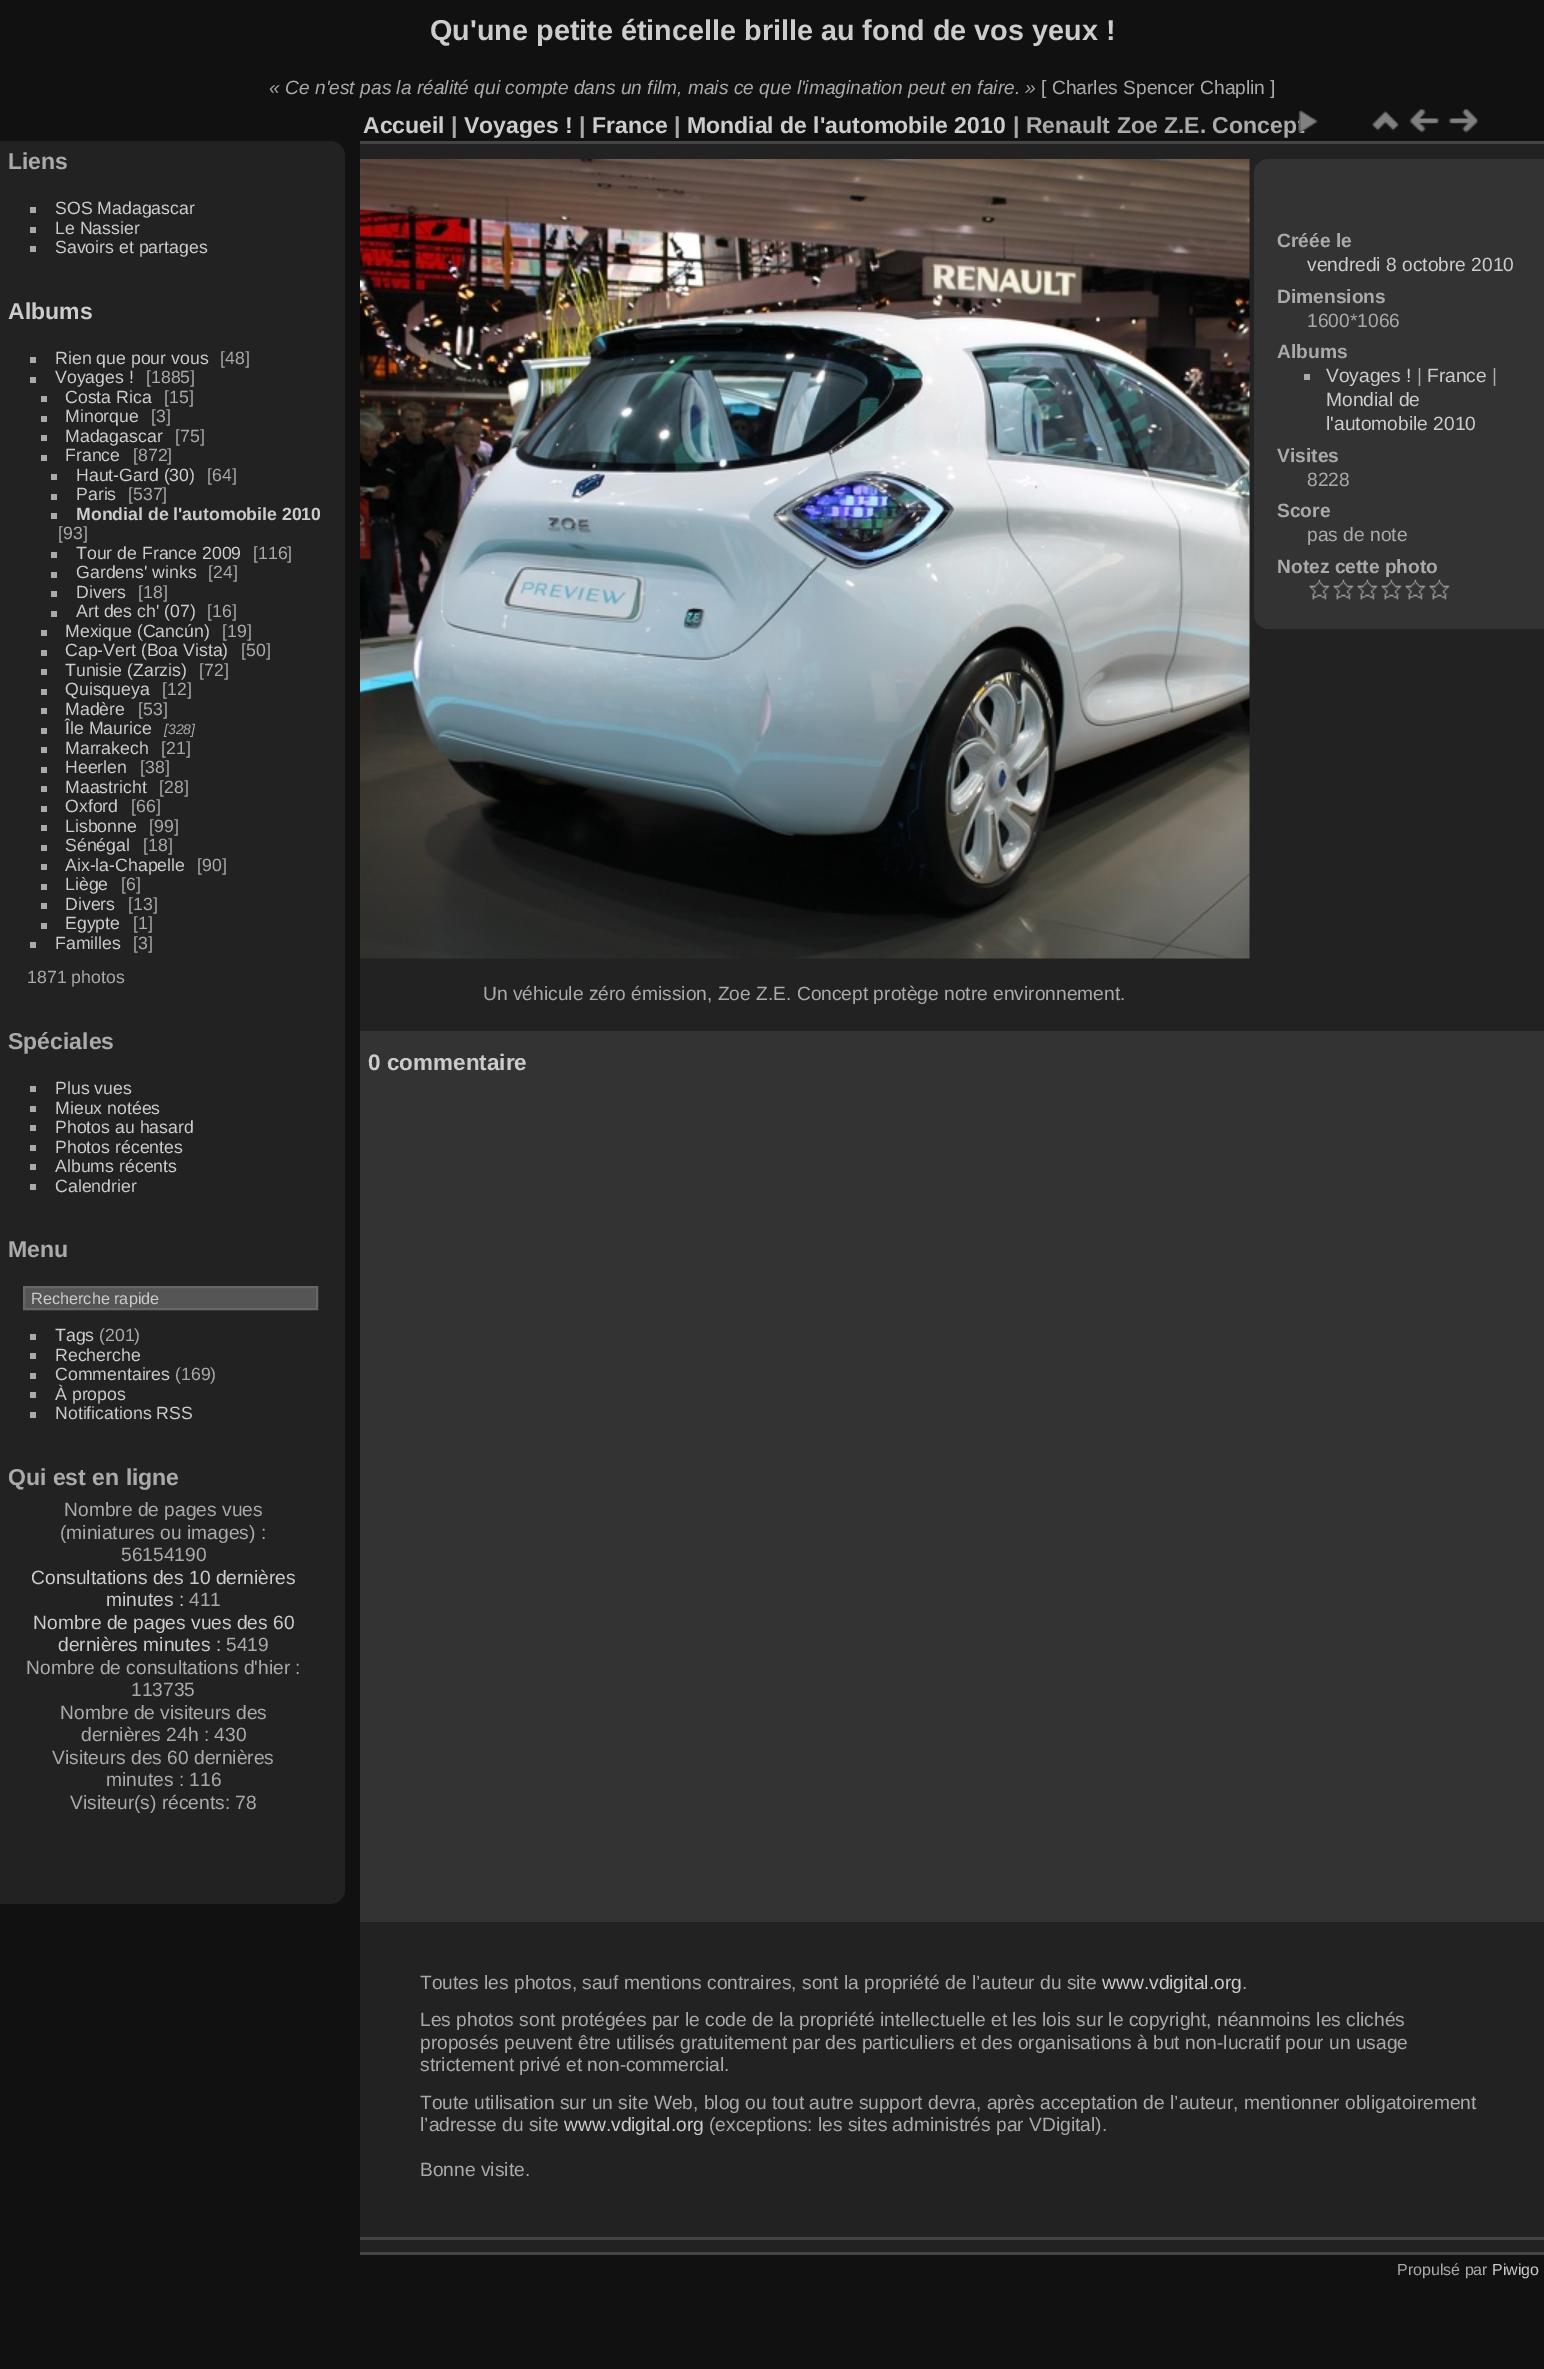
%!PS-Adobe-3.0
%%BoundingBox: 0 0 1544 2369
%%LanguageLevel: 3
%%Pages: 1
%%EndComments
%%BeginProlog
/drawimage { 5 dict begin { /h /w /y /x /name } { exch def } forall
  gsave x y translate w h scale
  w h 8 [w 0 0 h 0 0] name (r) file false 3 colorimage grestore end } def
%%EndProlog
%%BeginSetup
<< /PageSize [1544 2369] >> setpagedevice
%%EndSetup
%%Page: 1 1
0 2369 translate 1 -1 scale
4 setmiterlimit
0.067 setgray
0 0 1544 2369 rectfill
0.133 setgray
newpath 0 141 moveto 330 141 lineto 338.5 141 345 147.5 345 156 curveto 345 1889 lineto 345 1897.5 338.5 1904 330 1904 curveto 0 1904 lineto closepath fill
0.667 setgray
30 207 6 6 rectfill
30 227 6 6 rectfill
30 246 6 6 rectfill
30 357 6 6 rectfill
30 377 6 6 rectfill
41 396 6 6 rectfill
41 416 6 6 rectfill
41 435 6 6 rectfill
41 455 6 6 rectfill
51 474 6 6 rectfill
51 494 6 6 rectfill
51 513 6 6 rectfill
51 552 6 6 rectfill
51 572 6 6 rectfill
51 591 6 6 rectfill
51 611 6 6 rectfill
41 630 6 6 rectfill
41 650 6 6 rectfill
41 669 6 6 rectfill
41 689 6 6 rectfill
41 708 6 6 rectfill
41 728 6 6 rectfill
41 747 6 6 rectfill
41 767 6 6 rectfill
41 786 6 6 rectfill
41 806 6 6 rectfill
41 825 6 6 rectfill
41 845 6 6 rectfill
41 864 6 6 rectfill
41 884 6 6 rectfill
41 903 6 6 rectfill
41 923 6 6 rectfill
30 942 6 6 rectfill
30 1086 6 6 rectfill
30 1106 6 6 rectfill
30 1125 6 6 rectfill
30 1145 6 6 rectfill
30 1164 6 6 rectfill
30 1184 6 6 rectfill
0.333 setgray
newpath 24 1287 moveto 317 1287 lineto 317 1309 lineto 24 1309 lineto closepath gsave fill grestore
0.4 setgray
2 setlinewidth
stroke
0.667 setgray
30 1334 6 6 rectfill
30 1353 6 6 rectfill
30 1373 6 6 rectfill
30 1392 6 6 rectfill
30 1412 6 6 rectfill
0.133 setgray
360 144 1184 2108 rectfill
0.267 setgray
360 2252 1184 3 rectfill
360 141 1184 3 rectfill
(images/1.raw) 1298 110 20 23 drawimage
(images/2.raw) 1372 110 27 21 drawimage
(images/3.raw) 1409 109 30 24 drawimage
(images/4.raw) 1448 109 30 24 drawimage
0.2 setgray
newpath 1269 159 moveto 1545 159 lineto 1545 629 lineto 1269 629 lineto 1260.5 629 1254 622.5 1254 614 curveto 1254 174 lineto 1254 165.5 1260.5 159 1269 159 curveto closepath fill
0.667 setgray
1304 374 6 6 rectfill
(images/5.raw) 1309 579 21 21 drawimage
(images/5.raw) 1333 579 21 21 drawimage
(images/5.raw) 1357 579 21 21 drawimage
(images/5.raw) 1381 579 21 21 drawimage
(images/5.raw) 1405 579 21 21 drawimage
(images/5.raw) 1429 579 21 21 drawimage
(images/6.raw) 360 159 890 800 drawimage
0.2 setgray
360 1031 1184 891 rectfill
0.267 setgray
360 2237 1184 3 rectfill
/LiberationSans-Bold [28.8 0 0 -28.8 0 0] selectfont
0.8 setgray
430 40 moveto (Qu'une petite étincelle brille au fond de vos yeux !) show
/LiberationSans-Italic [19.2 0 0 -19.2 0 0] selectfont
0.667 setgray
269 94 moveto (« Ce n'est pas la réalité qui compte dans un film, mais ce que l'imagination peut en faire. ») show
/LiberationSans-Regular [19.2 0 0 -19.2 0 0] selectfont
1041 94 moveto ([ Charles Spencer Chaplin ]) show
/LiberationSans-Bold [23 0 0 -23 0 0] selectfont
8 169 moveto (Liens) show
/LiberationSans-Regular [17.7 0 0 -17.7 0 0] selectfont
0.8 setgray
55 214 moveto (SOS Madagascar) show
55 234 moveto (Le Nassier) show
55 253 moveto (Savoirs et partages) show
/LiberationSans-Bold [23 0 0 -23 0 0] selectfont
8 319 moveto (Albums) show
/LiberationSans-Regular [17.7 0 0 -17.7 0 0] selectfont
55 364 moveto (Rien que pour vous) show
0.667 setgray
220 364 moveto ([48]) show
0.8 setgray
55 383 moveto (Voyages !) show
0.667 setgray
146 383 moveto ([1885]) show
0.8 setgray
65 403 moveto (Costa Rica) show
0.667 setgray
164 403 moveto ([15]) show
0.8 setgray
65 422 moveto (Minorque) show
0.667 setgray
151 422 moveto ([3]) show
0.8 setgray
65 442 moveto (Madagascar) show
0.667 setgray
175 442 moveto ([75]) show
0.8 setgray
65 461 moveto (France) show
0.667 setgray
133 461 moveto ([872]) show
0.8 setgray
76 481 moveto (Haut-Gard \(30\)) show
0.667 setgray
207 481 moveto ([64]) show
0.8 setgray
76 500 moveto (Paris) show
0.667 setgray
128 500 moveto ([537]) show
/LiberationSans-Bold [17.7 0 0 -17.7 0 0] selectfont
0.8 setgray
76 520 moveto (Mondial de l'automobile 2010) show
/LiberationSans-Regular [17.7 0 0 -17.7 0 0] selectfont
0.667 setgray
58 539 moveto ([93]) show
0.8 setgray
76 559 moveto (Tour de France 2009) show
0.667 setgray
253 559 moveto ([116]) show
0.8 setgray
76 578 moveto (Gardens' winks) show
0.667 setgray
208 578 moveto ([24]) show
0.8 setgray
76 598 moveto (Divers) show
0.667 setgray
138 598 moveto ([18]) show
0.8 setgray
76 617 moveto (Art des ch' \(07\)) show
0.667 setgray
207 617 moveto ([16]) show
0.8 setgray
65 637 moveto (Mexique \(Cancún\)) show
0.667 setgray
222 637 moveto ([19]) show
0.8 setgray
65 656 moveto (Cap-Vert \(Boa Vista\)) show
0.667 setgray
241 656 moveto ([50]) show
0.8 setgray
65 676 moveto (Tunisie \(Zarzis\)) show
0.667 setgray
199 676 moveto ([72]) show
0.8 setgray
65 695 moveto (Quisqueya) show
0.667 setgray
162 695 moveto ([12]) show
0.8 setgray
65 715 moveto (Madère) show
0.667 setgray
138 715 moveto ([53]) show
0.8 setgray
65 734 moveto (Île Maurice) show
/LiberationSans-Italic [14 0 0 -14 0 0] selectfont
0.667 setgray
164 734 moveto ([328]) show
/LiberationSans-Regular [17.7 0 0 -17.7 0 0] selectfont
0.8 setgray
65 754 moveto (Marrakech) show
0.667 setgray
161 754 moveto ([21]) show
0.8 setgray
65 773 moveto (Heerlen) show
0.667 setgray
140 773 moveto ([38]) show
0.8 setgray
65 793 moveto (Maastricht) show
0.667 setgray
159 793 moveto ([28]) show
0.8 setgray
65 812 moveto (Oxford) show
0.667 setgray
131 812 moveto ([66]) show
0.8 setgray
65 832 moveto (Lisbonne) show
0.667 setgray
149 832 moveto ([99]) show
0.8 setgray
65 851 moveto (Sénégal) show
0.667 setgray
143 851 moveto ([18]) show
0.8 setgray
65 871 moveto (Aix-la-Chapelle) show
0.667 setgray
197 871 moveto ([90]) show
0.8 setgray
65 890 moveto (Liège) show
0.667 setgray
121 890 moveto ([6]) show
0.8 setgray
65 910 moveto (Divers) show
0.667 setgray
128 910 moveto ([13]) show
0.8 setgray
65 929 moveto (Egypte) show
0.667 setgray
133 929 moveto ([1]) show
0.8 setgray
55 949 moveto (Familles) show
0.667 setgray
133 949 moveto ([3]) show
27 983 moveto (1871 photos) show
/LiberationSans-Bold [23 0 0 -23 0 0] selectfont
8 1049 moveto (Spéciales) show
/LiberationSans-Regular [17.7 0 0 -17.7 0 0] selectfont
0.8 setgray
55 1094 moveto (Plus vues) show
55 1114 moveto (Mieux notées) show
55 1133 moveto (Photos au hasard) show
55 1153 moveto (Photos récentes) show
55 1172 moveto (Albums récents) show
55 1192 moveto (Calendrier) show
/LiberationSans-Bold [23 0 0 -23 0 0] selectfont
0.667 setgray
8 1257 moveto (Menu) show
/LiberationSans-Regular [16.25 0 0 -16.25 0 0] selectfont
0.8 setgray
31 1304 moveto (Recherche rapide) show
/LiberationSans-Regular [17.7 0 0 -17.7 0 0] selectfont
55 1341 moveto (Tags) show
0.667 setgray
99 1341 moveto (\(201\)) show
0.8 setgray
55 1361 moveto (Recherche) show
55 1380 moveto (Commentaires) show
0.667 setgray
175 1380 moveto (\(169\)) show
0.8 setgray
55 1400 moveto (À propos) show
55 1419 moveto (Notifications RSS) show
/LiberationSans-Bold [23 0 0 -23 0 0] selectfont
0.667 setgray
8 1485 moveto (Qui est en ligne) show
/LiberationSans-Regular [19.2 0 0 -19.2 0 0] selectfont
64 1516 moveto (Nombre de pages vues) show
60 1539 moveto (\(miniatures ou images\) :) show
121 1561 moveto (56154190) show
0.8 setgray
31 1584 moveto (Consultations des 10 dernières) show
106 1606 moveto (minutes :) show
0.667 setgray
189 1606 moveto (411) show
0.8 setgray
33 1629 moveto (Nombre de pages vues des 60) show
58 1651 moveto (dernières minutes :) show
0.667 setgray
226 1651 moveto (5419) show
26 1674 moveto (Nombre de consultations d'hier :) show
131 1696 moveto (113735) show
60 1719 moveto (Nombre de visiteurs des) show
81 1741 moveto (dernières 24h : 430) show
52 1764 moveto (Visiteurs des 60 dernières) show
106 1786 moveto (minutes : 116) show
70 1809 moveto (Visiteur\(s\) récents: 78) show
/LiberationSans-Bold [23 0 0 -23 0 0] selectfont
0.8 setgray
363 133 moveto (Accueil) show
0.667 setgray
451 133 moveto (|) show
0.8 setgray
464 133 moveto (Voyages !) show
0.667 setgray
579 133 moveto (|) show
0.8 setgray
592 133 moveto (France) show
0.667 setgray
674 133 moveto (|) show
0.8 setgray
687 133 moveto (Mondial de l'automobile 2010) show
0.667 setgray
1013 133 moveto (| Renault Zoe Z.E. Concep) show
/LiberationSans-Bold [19.2 0 0 -19.2 0 0] selectfont
1277 247 moveto (Créée le) show
/LiberationSans-Regular [19.2 0 0 -19.2 0 0] selectfont
0.8 setgray
1307 271 moveto (vendredi 8 octobre 2010) show
/LiberationSans-Bold [19.2 0 0 -19.2 0 0] selectfont
0.667 setgray
1277 303 moveto (Dimensions) show
/LiberationSans-Regular [19.2 0 0 -19.2 0 0] selectfont
1307 327 moveto (1600*1066) show
/LiberationSans-Bold [19.2 0 0 -19.2 0 0] selectfont
1277 358 moveto (Albums) show
/LiberationSans-Regular [19.2 0 0 -19.2 0 0] selectfont
0.8 setgray
1326 382 moveto (Voyages !) show
0.667 setgray
1417 382 moveto (|) show
0.8 setgray
1427 382 moveto (France) show
0.667 setgray
1492 382 moveto (|) show
0.8 setgray
1326 406 moveto (Mondial de) show
1326 430 moveto (l'automobile 2010) show
/LiberationSans-Bold [19.2 0 0 -19.2 0 0] selectfont
0.667 setgray
1277 462 moveto (Visites) show
/LiberationSans-Regular [19.2 0 0 -19.2 0 0] selectfont
1307 486 moveto (8228) show
/LiberationSans-Bold [19.2 0 0 -19.2 0 0] selectfont
1277 517 moveto (Score) show
/LiberationSans-Regular [19.2 0 0 -19.2 0 0] selectfont
1307 541 moveto (pas de note) show
/LiberationSans-Bold [19.2 0 0 -19.2 0 0] selectfont
1277 573 moveto (Notez cette photo) show
/LiberationSans-Regular [19.2 0 0 -19.2 0 0] selectfont
483 1000 moveto (Un véhicule zéro émission, Zoe Z.E. Concept protège notre environnement.) show
/LiberationSans-Bold [22.5 0 0 -22.5 0 0] selectfont
0.8 setgray
368 1070 moveto (0 commentaire) show
/LiberationSans-Regular [19.2 0 0 -19.2 0 0] selectfont
0.667 setgray
420 1989 moveto (Toutes les photos, sauf mentions contraires, sont la propriété de l’auteur du site) show
0.8 setgray
1102 1989 moveto (www.vdigital.org) show
0.667 setgray
1242 1989 moveto (.) show
420 2026 moveto (Les photos sont protégées par le code de la propriété intellectuelle et les lois sur le copyright, néanmoins les clichés) show
420 2049 moveto (proposés peuvent être utilisés gratuitement par des particuliers et des organisations à but non-lucratif pour un usage) show
420 2071 moveto (strictement privé et non-commercial.) show
420 2109 moveto (Toute utilisation sur un site Web, blog ou tout autre support devra, après acceptation de l’auteur, mentionner obligatoirement) show
420 2131 moveto (l’adresse du site) show
0.8 setgray
564 2131 moveto (www.vdigital.org) show
0.667 setgray
709 2131 moveto (\(exceptions: les sites administrés par VDigital\).) show
420 2176 moveto (Bonne visite.) show
/LiberationSans-Regular [16 0 0 -16 0 0] selectfont
1397 2275 moveto (Propulsé par) show
0.8 setgray
1492 2275 moveto (Piwigo) show
showpage
%%EOF
